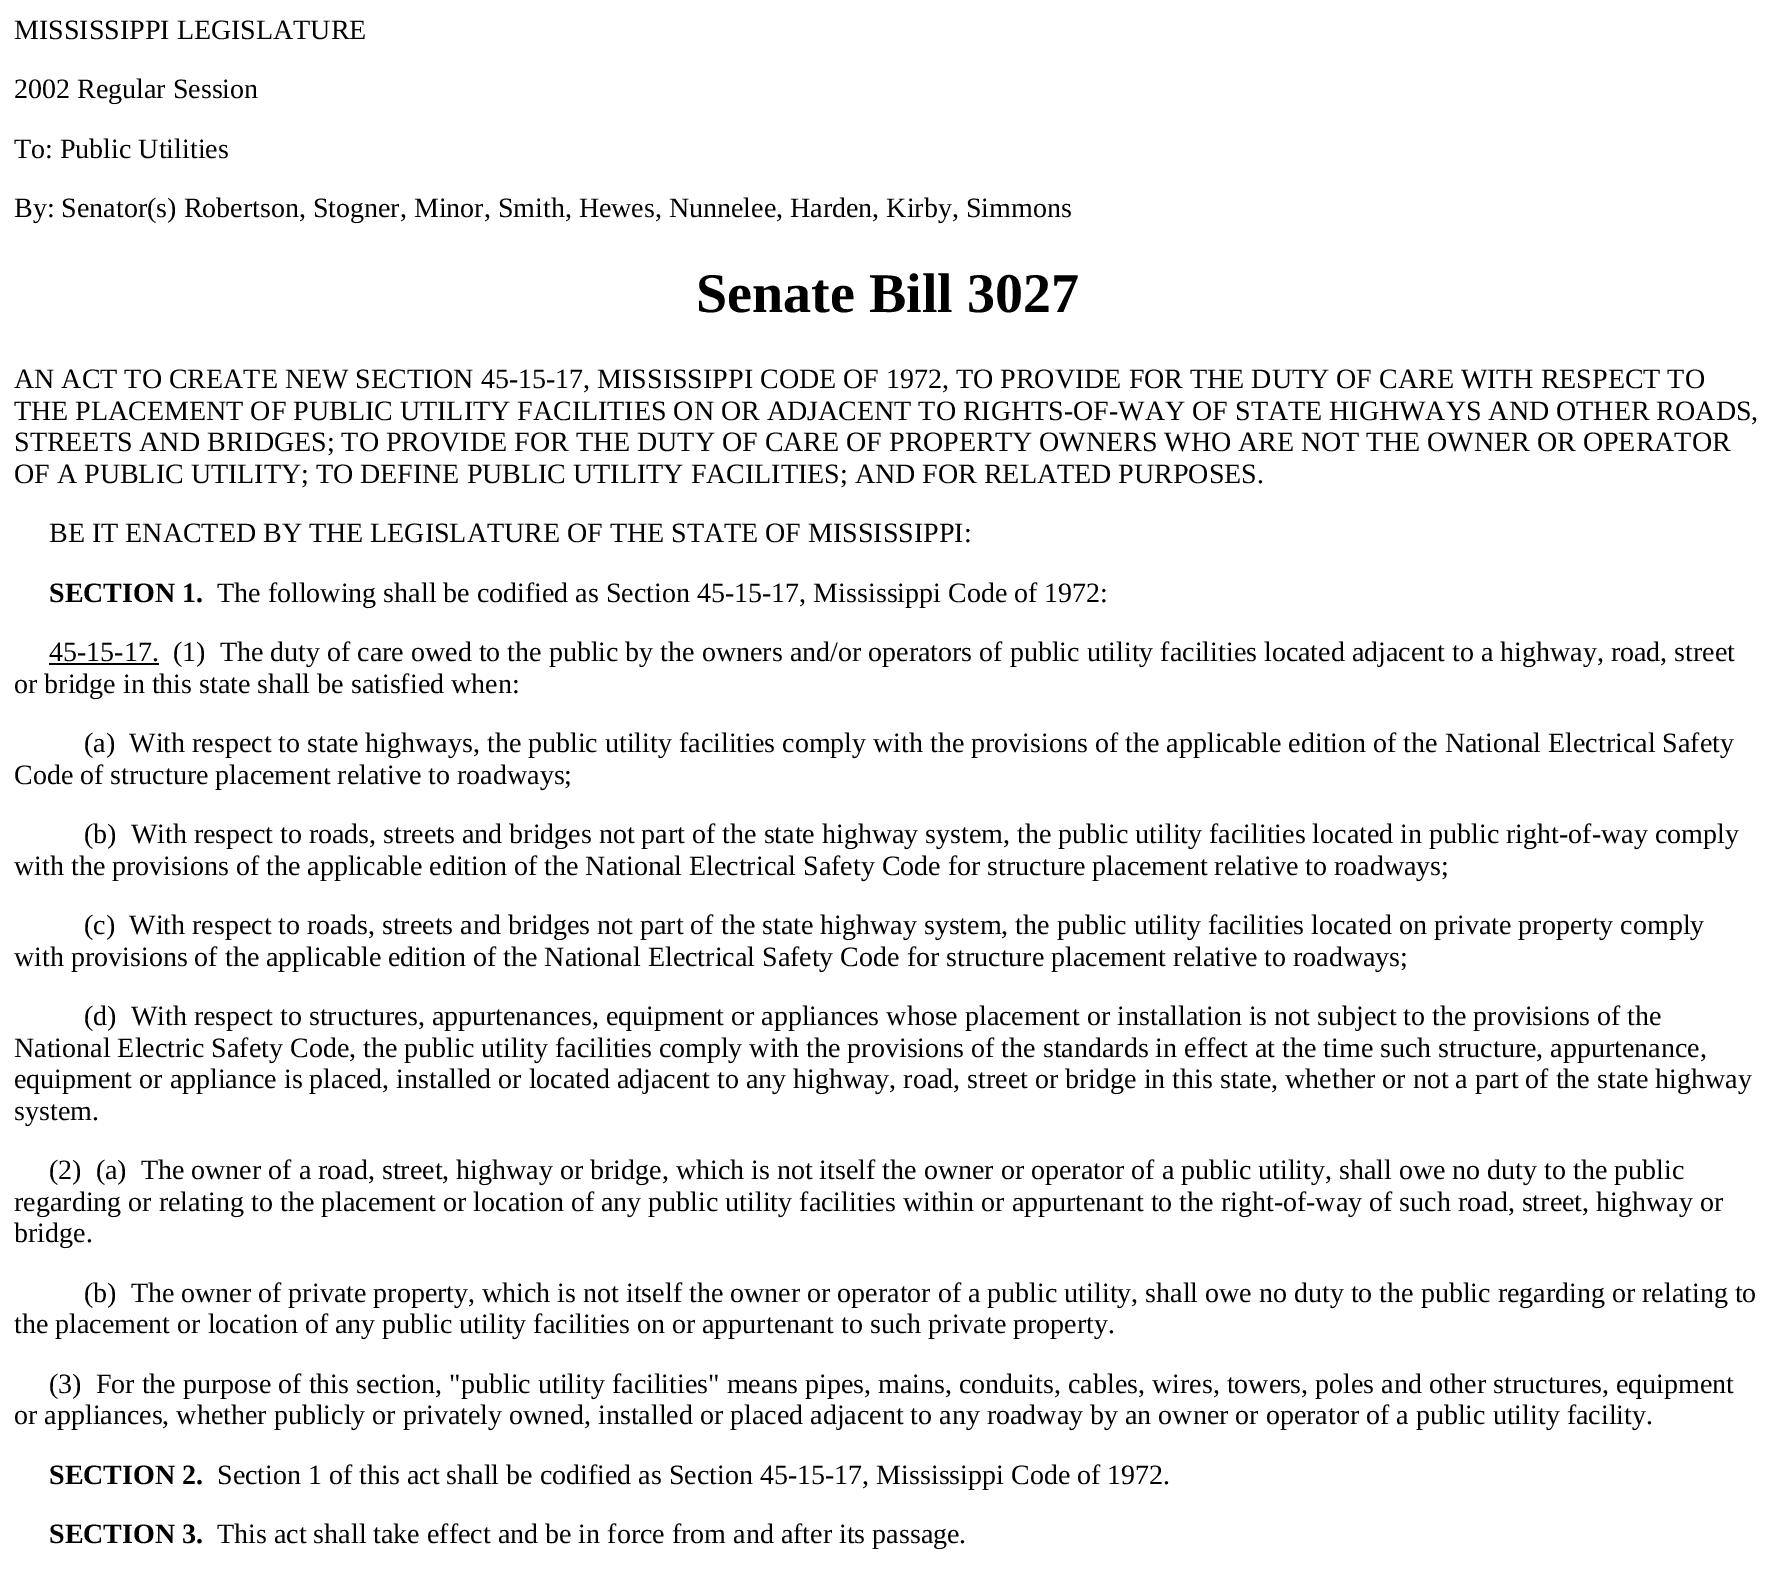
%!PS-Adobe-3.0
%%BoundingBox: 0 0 1774 1582
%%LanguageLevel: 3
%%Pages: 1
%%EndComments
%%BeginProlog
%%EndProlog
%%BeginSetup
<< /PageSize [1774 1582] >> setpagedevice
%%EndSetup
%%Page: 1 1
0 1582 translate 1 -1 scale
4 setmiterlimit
1 setgray
0 0 1774 1582 rectfill
0 setgray
49 663 110 2 rectfill
/LiberationSerif-Regular [28 0 0 -28 0 0] selectfont
14 39 moveto (MISSISSIPPI LEGISLATURE) show
14 98 moveto (2002 Regular Session) show
14 158 moveto (To: Public Utilities) show
14 217 moveto (By: Senator\(s\) Robertson, Stogner, Minor, Smith, Hewes, Nunnelee, Harden, Kirby, Simmons) show
/LiberationSerif-Bold [56 0 0 -56 0 0] selectfont
696 312 moveto (Senate Bill 3027) show
/LiberationSerif-Regular [28 0 0 -28 0 0] selectfont
14 388 moveto (AN ACT TO CREATE NEW SECTION 45-15-17, MISSISSIPPI CODE OF 1972, TO PROVIDE FOR THE DUTY OF CARE WITH RESPECT TO) show
14 420 moveto (THE PLACEMENT OF PUBLIC UTILITY FACILITIES ON OR ADJACENT TO RIGHTS-OF-WAY OF STATE HIGHWAYS AND OTHER ROADS,) show
14 451 moveto (STREETS AND BRIDGES; TO PROVIDE FOR THE DUTY OF CARE OF PROPERTY OWNERS WHO ARE NOT THE OWNER OR OPERATOR) show
14 483 moveto (OF A PUBLIC UTILITY; TO DEFINE PUBLIC UTILITY FACILITIES; AND FOR RELATED PURPOSES.) show
49 542 moveto (BE IT ENACTED BY THE LEGISLATURE OF THE STATE OF MISSISSIPPI:) show
/LiberationSerif-Bold [28 0 0 -28 0 0] selectfont
49 602 moveto (SECTION 1.) show
/LiberationSerif-Regular [28 0 0 -28 0 0] selectfont
217 602 moveto (The following shall be codified as Section 45-15-17, Mississippi Code of 1972:) show
49 661 moveto (45-15-17.) show
173 661 moveto (\(1\)  The duty of care owed to the public by the owners and/or operators of public utility facilities located adjacent to a highway, road, street) show
14 693 moveto (or bridge in this state shall be satisfied when:) show
84 752 moveto (\(a\)  With respect to state highways, the public utility facilities comply with the provisions of the applicable edition of the National Electrical Safety) show
14 784 moveto (Code of structure placement relative to roadways;) show
84 843 moveto (\(b\)  With respect to roads, streets and bridges not part of the state highway system, the public utility facilities located in public right-of-way comply) show
14 875 moveto (with the provisions of the applicable edition of the National Electrical Safety Code for structure placement relative to roadways;) show
84 934 moveto (\(c\)  With respect to roads, streets and bridges not part of the state highway system, the public utility facilities located on private property comply) show
14 966 moveto (with provisions of the applicable edition of the National Electrical Safety Code for structure placement relative to roadways;) show
84 1025 moveto (\(d\)  With respect to structures, appurtenances, equipment or appliances whose placement or installation is not subject to the provisions of the) show
14 1057 moveto (National Electric Safety Code, the public utility facilities comply with the provisions of the standards in effect at the time such structure, appurtenance,) show
14 1088 moveto (equipment or appliance is placed, installed or located adjacent to any highway, road, street or bridge in this state, whether or not a part of the state highway) show
14 1120 moveto (system.) show
49 1179 moveto (\(2\)  \(a\)  The owner of a road, street, highway or bridge, which is not itself the owner or operator of a public utility, shall owe no duty to the public) show
14 1211 moveto (regarding or relating to the placement or location of any public utility facilities within or appurtenant to the right-of-way of such road, street, highway or) show
14 1242 moveto (bridge.) show
84 1302 moveto (\(b\)  The owner of private property, which is not itself the owner or operator of a public utility, shall owe no duty to the public regarding or relating to) show
14 1333 moveto (the placement or location of any public utility facilities on or appurtenant to such private property.) show
49 1393 moveto (\(3\)  For the purpose of this section, "public utility facilities" means pipes, mains, conduits, cables, wires, towers, poles and other structures, equipment) show
14 1424 moveto (or appliances, whether publicly or privately owned, installed or placed adjacent to any roadway by an owner or operator of a public utility facility.) show
/LiberationSerif-Bold [28 0 0 -28 0 0] selectfont
49 1484 moveto (SECTION 2.) show
/LiberationSerif-Regular [28 0 0 -28 0 0] selectfont
217 1484 moveto (Section 1 of this act shall be codified as Section 45-15-17, Mississippi Code of 1972.) show
/LiberationSerif-Bold [28 0 0 -28 0 0] selectfont
49 1543 moveto (SECTION 3.) show
/LiberationSerif-Regular [28 0 0 -28 0 0] selectfont
217 1543 moveto (This act shall take effect and be in force from and after its passage.) show
showpage
%%EOF
